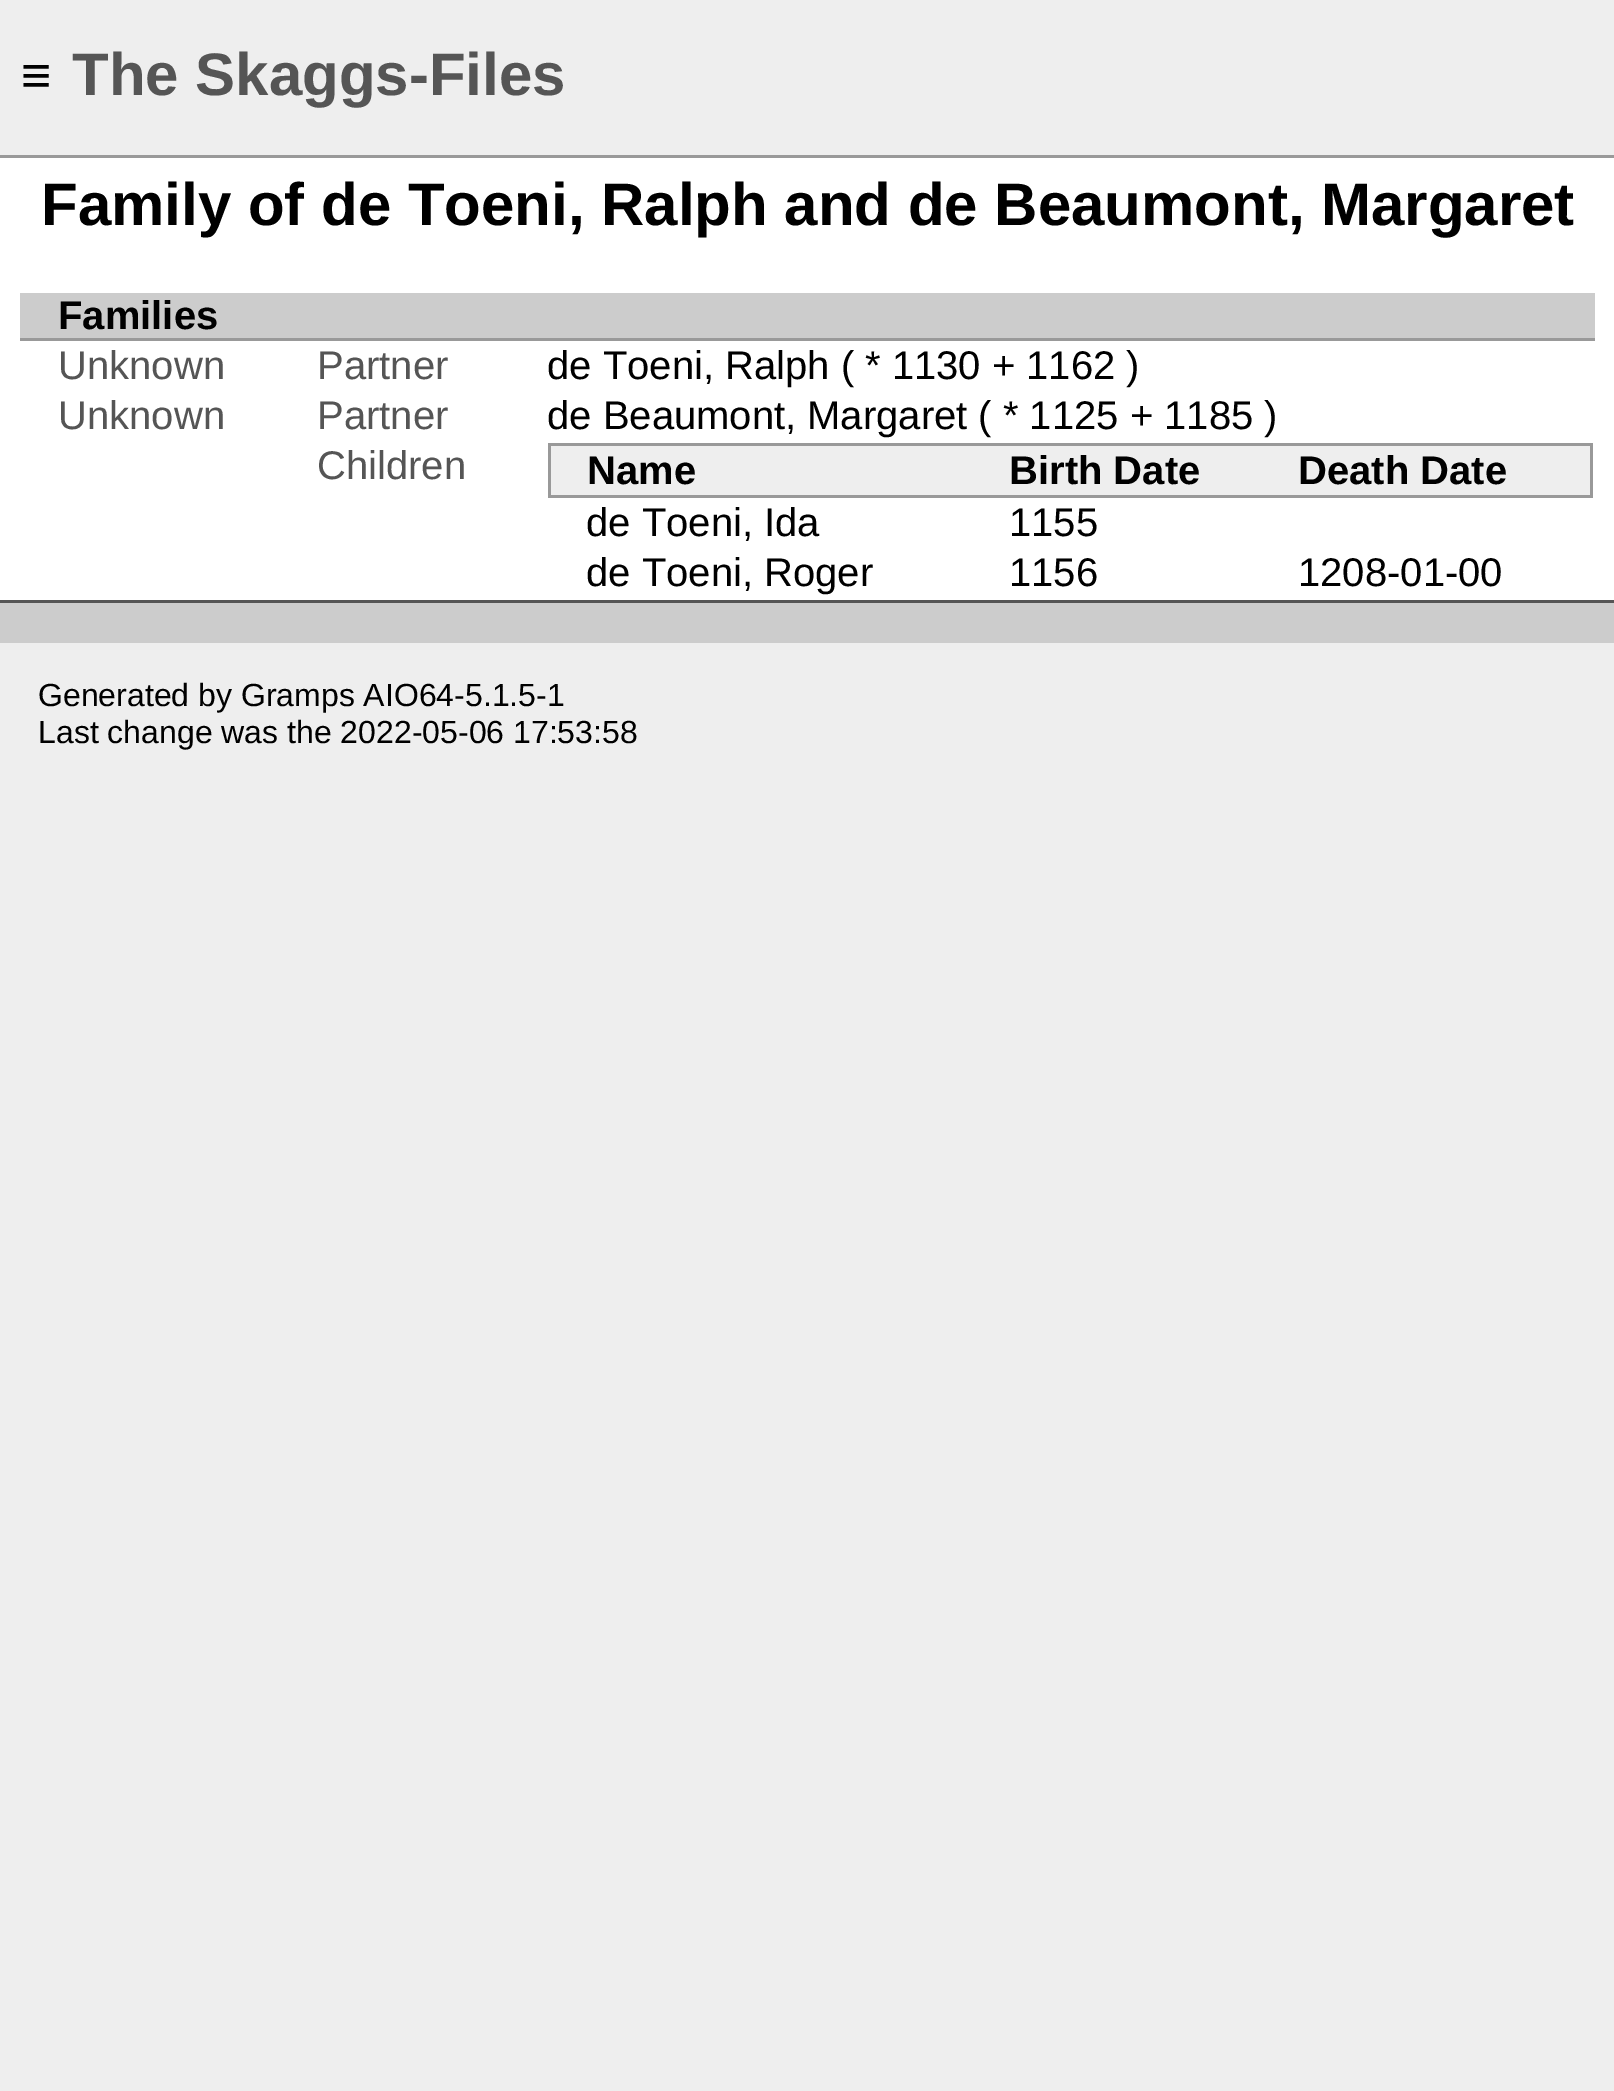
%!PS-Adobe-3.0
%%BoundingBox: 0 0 1614 2091
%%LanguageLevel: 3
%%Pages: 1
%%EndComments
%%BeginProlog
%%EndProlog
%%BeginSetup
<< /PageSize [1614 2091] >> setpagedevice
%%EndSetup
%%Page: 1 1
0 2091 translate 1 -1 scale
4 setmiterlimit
0.933 setgray
0 0 1614 2091 rectfill
1 setgray
0 158 1614 442 rectfill
0.6 setgray
0 155 1614 3 rectfill
0.8 setgray
20 293 1575 45 rectfill
0.6 setgray
20 338 1575 3 rectfill
0.933 setgray
551 446 1039 49 rectfill
0.6 setgray
548 443 1045 3 rectfill
1590 443 3 55 rectfill
548 495 1045 3 rectfill
548 443 3 55 rectfill
0.8 setgray
0 603 1614 40 rectfill
0.333 setgray
0 600 1614 3 rectfill
/LiberationSans-Regular [52 0 0 -52 0 0] selectfont
0 setgray
21 93 moveto (≡) show
/LiberationSans-Bold [60 0 0 -60 0 0] selectfont
0.333 setgray
72 95 moveto (The Skaggs-Files) show
0 setgray
41 225 moveto (Family of de Toeni, Ralph and de Beaumont, Margaret) show
/LiberationSans-Bold [40 0 0 -40 0 0] selectfont
58 329 moveto (Families) show
/LiberationSans-Regular [40 0 0 -40 0 0] selectfont
0.333 setgray
58 379 moveto (Unknown) show
317 379 moveto (Partner) show
0 setgray
547 379 moveto (de Toeni, Ralph \( * 1130 + 1162 \)) show
0.333 setgray
58 429 moveto (Unknown) show
317 429 moveto (Partner) show
0 setgray
547 429 moveto (de Beaumont, Margaret \( * 1125 + 1185 \)) show
0.333 setgray
317 479 moveto (Children) show
/LiberationSans-Bold [40 0 0 -40 0 0] selectfont
0 setgray
587 484 moveto (Name) show
1009 484 moveto (Birth Date) show
1298 484 moveto (Death Date) show
/LiberationSans-Regular [40 0 0 -40 0 0] selectfont
586 536 moveto (de Toeni, Ida) show
1009 536 moveto (1155) show
586 586 moveto (de Toeni, Roger) show
1009 586 moveto (1156) show
1298 586 moveto (1208-01-00) show
/LiberationSans-Regular [32 0 0 -32 0 0] selectfont
38 706 moveto (Generated by Gramps AIO64-5.1.5-1) show
38 743 moveto (Last change was the 2022-05-06 17:53:58) show
showpage
%%EOF
